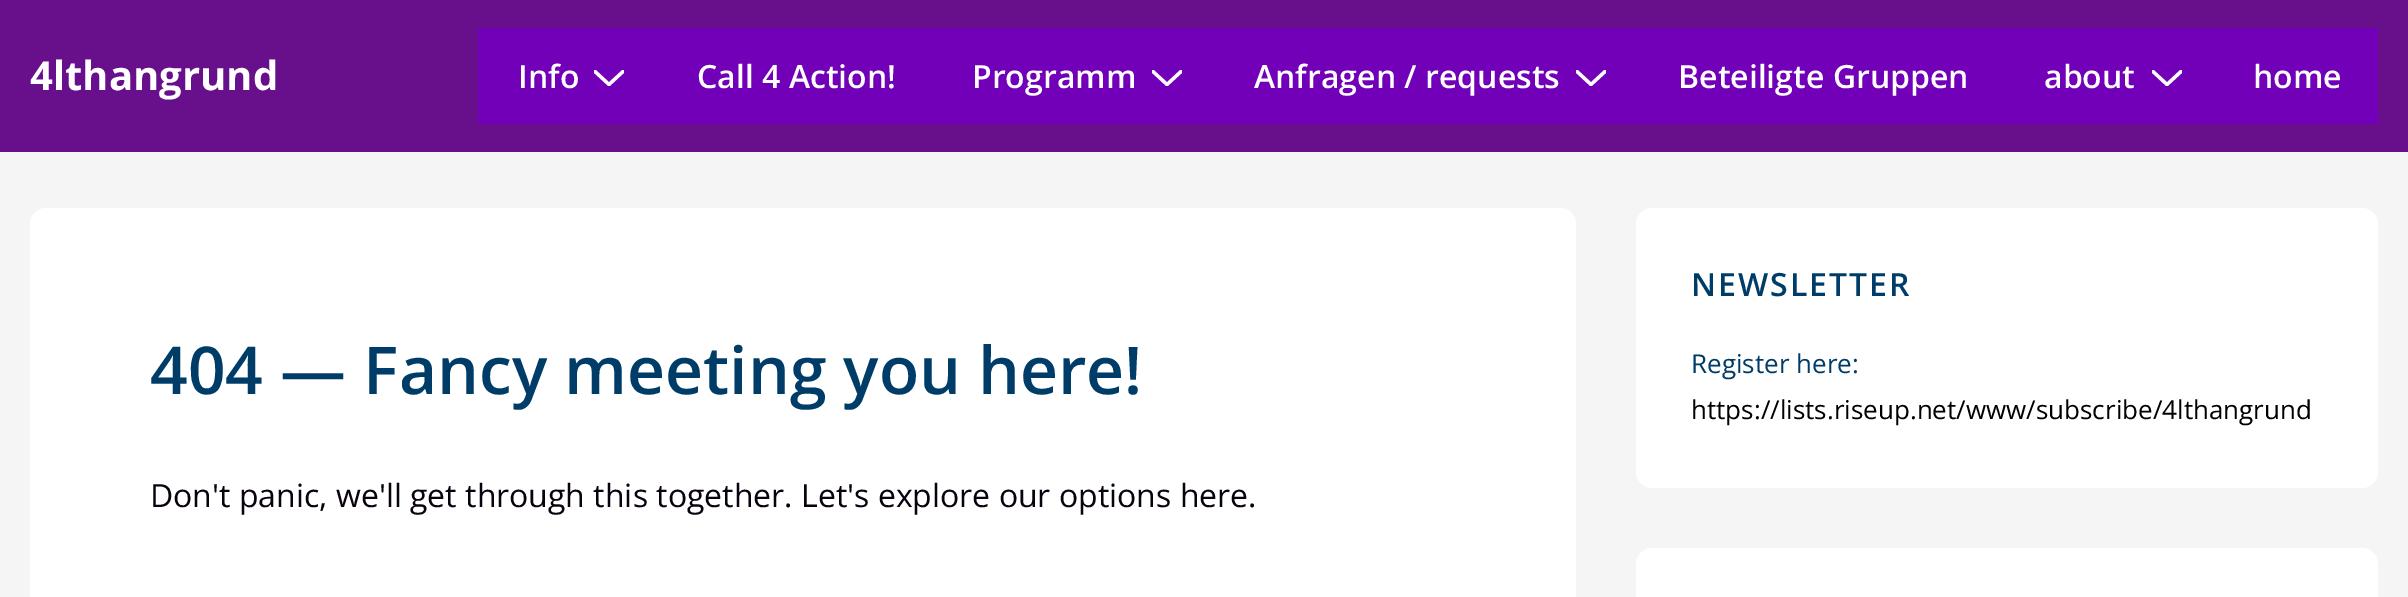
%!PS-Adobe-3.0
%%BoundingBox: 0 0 2408 597
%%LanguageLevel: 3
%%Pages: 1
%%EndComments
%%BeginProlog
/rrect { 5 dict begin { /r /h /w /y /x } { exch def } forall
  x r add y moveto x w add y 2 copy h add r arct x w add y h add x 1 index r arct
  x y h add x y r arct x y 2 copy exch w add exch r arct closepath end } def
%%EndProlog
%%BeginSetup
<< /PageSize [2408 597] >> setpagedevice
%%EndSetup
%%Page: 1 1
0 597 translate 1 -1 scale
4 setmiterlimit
0.961 setgray
0 0 2408 597 rectfill
0.408 0.059 0.549 setrgbcolor
0 0 2408 152 rectfill
0.443 0 0.722 setrgbcolor
478 28 1900 96 rectfill
gsave
594 70 30 16 rectclip
1 setgray
3.3 setlinewidth
1 setlinecap
newpath 595 71.5 moveto 609 84.5 lineto 623 71.5 lineto stroke
grestore
gsave
1152 70 30 16 rectclip
1 setgray
3.3 setlinewidth
1 setlinecap
newpath 1153 71.5 moveto 1167 84.5 lineto 1181 71.5 lineto stroke
grestore
gsave
1576 70 30 16 rectclip
1 setgray
3.3 setlinewidth
1 setlinecap
newpath 1577 71.5 moveto 1591 84.5 lineto 1605 71.5 lineto stroke
grestore
gsave
2152 70 30 16 rectclip
1 setgray
3.3 setlinewidth
1 setlinecap
newpath 2153 71.5 moveto 2167 84.5 lineto 2181 71.5 lineto stroke
grestore
1 setgray
30 208 1546 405 16 rrect fill
1636 208 742 280 16 rrect fill
1636 548 742 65 16 rrect fill
/OpenSans-Bold [40 0 0 -40 0 0] selectfont
30 90 moveto (4lthangrund) show
/OpenSans-SemiBold [32 0 0 -32 0 0] selectfont
518 88 moveto (Info) show
697 88 moveto (Call 4 Action!) show
972 88 moveto (Programm) show
1254 88 moveto (Anfragen / requests) show
1678 88 moveto (Beteiligte Gruppen) show
2044 88 moveto (about) show
2253 88 moveto (home) show
/OpenSans-SemiBold [66 0 0 -66 0 0] selectfont
0 0.235 0.408 setrgbcolor
150 394 moveto (404 — Fancy meeting you here!) show
/OpenSans-Regular [32 0 0 -32 0 0] selectfont
0.039 0.004 0.059 setrgbcolor
150 507 moveto (Don't panic, we'll get through this together. Let's explore our options here.) show
/OpenSans-SemiBold [32 0 0 -32 0 0] selectfont
0 0.235 0.408 setrgbcolor
1691 296 moveto 2 0 (NEWSLETTER) ashow
/OpenSans-Regular [26 0 0 -26 0 0] selectfont
1691 373 moveto (Register here:) show
0 setgray
1691 419 moveto (https://lists.riseup.net/www/subscribe/4lthangrund) show
showpage
%%EOF
